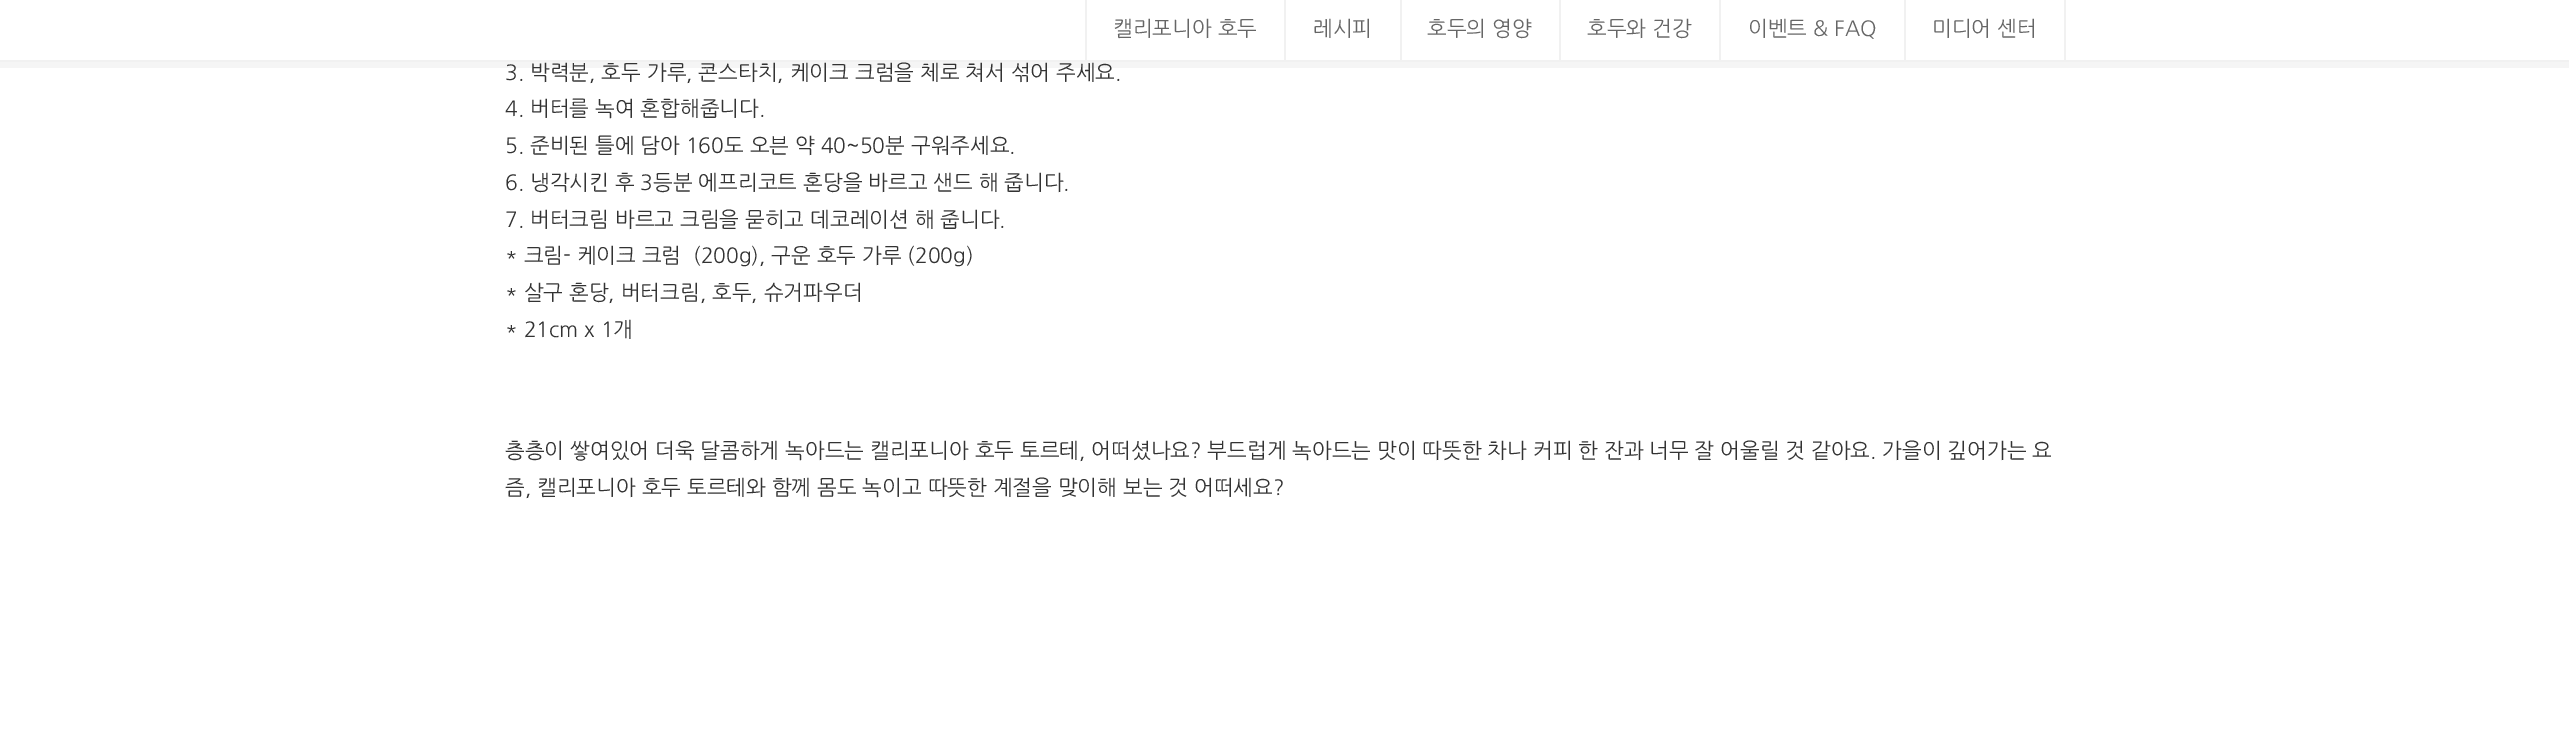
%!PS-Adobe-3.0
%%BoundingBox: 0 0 2569 750
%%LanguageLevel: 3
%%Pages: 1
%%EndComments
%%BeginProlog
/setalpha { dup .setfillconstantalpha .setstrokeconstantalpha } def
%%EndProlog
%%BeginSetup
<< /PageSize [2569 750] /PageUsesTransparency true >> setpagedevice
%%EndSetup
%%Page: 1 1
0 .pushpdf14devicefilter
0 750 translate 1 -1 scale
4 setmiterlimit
1 setgray
0 0 2569 750 rectfill
0.04 setalpha
0 setgray
newpath 0 62 moveto 0 68 lineto 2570 68 lineto 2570 6 lineto 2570 62 lineto closepath fill
1 setalpha
0.945 setgray
0 60 2569 2 rectfill
1284 0 2 60 rectfill
1085 0 2 60 rectfill
1400 0 2 60 rectfill
1559 0 2 60 rectfill
1719 0 2 60 rectfill
1904 0 2 60 rectfill
2064 0 2 60 rectfill
/NanumGothic-Regular [21 0 0 -21 0 0] selectfont
0.4 setgray
1113 36 moveto (캘리포니아 호두) show
1313 36 moveto (레시피) show
1427 36 moveto (호두의 영양) show
1587 36 moveto (호두와 건강) show
1748 36 moveto (이벤트 & FAQ) show
1932 36 moveto (미디어 센터) show
0.2 setgray
505 80 moveto (3. 박력분, 호두 가루, 콘스타치, 케이크 크럼을 체로 쳐서 섞어 주세요.) show
505 116 moveto (4. 버터를 녹여 혼합해줍니다.) show
505 153 moveto (5. 준비된 틀에 담아 160도 오븐 약 40~50분 구워주세요.) show
505 190 moveto (6. 냉각시킨 후 3등분 에프리코트 혼당을 바르고 샌드 해 줍니다.) show
505 227 moveto (7. 버터크림 바르고 크림을 묻히고 데코레이션 해 줍니다.) show
505 263 moveto (* 크림- 케이크 크럼  \(200g\), 구운 호두 가루 \(200g\)) show
505 300 moveto (* 살구 혼당, 버터크림, 호두, 슈거파우더) show
505 337 moveto (* 21cm x 1개) show
505 458 moveto (층층이 쌓여있어 더욱 달콤하게 녹아드는 캘리포니아 호두 토르테, 어떠셨나요? 부드럽게 녹아드는 맛이 따뜻한 차나 커피 한 잔과 너무 잘 어울릴 것 같아요. 가을이 깊어가는 요) show
505 495 moveto (즘, 캘리포니아 호두 토르테와 함께 몸도 녹이고 따뜻한 계절을 맞이해 보는 것 어떠세요?) show
.poppdf14devicefilter showpage
%%EOF
